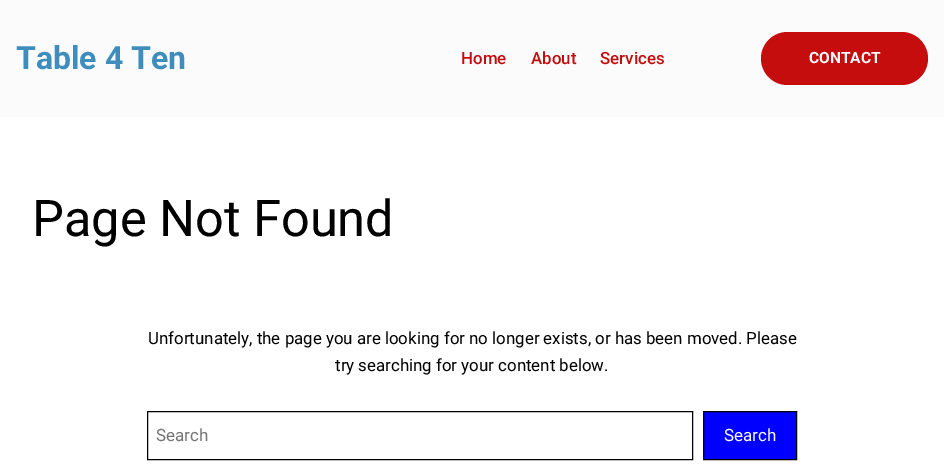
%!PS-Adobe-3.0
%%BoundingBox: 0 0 944 464
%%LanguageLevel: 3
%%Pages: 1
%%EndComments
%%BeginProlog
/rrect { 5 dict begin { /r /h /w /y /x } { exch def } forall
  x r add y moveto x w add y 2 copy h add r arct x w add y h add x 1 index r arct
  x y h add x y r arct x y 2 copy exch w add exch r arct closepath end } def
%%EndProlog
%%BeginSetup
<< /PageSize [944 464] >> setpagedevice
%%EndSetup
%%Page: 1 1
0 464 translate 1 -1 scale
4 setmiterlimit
1 setgray
0 0 944 464 rectfill
0.984 setgray
0 0 944 117 rectfill
0.773 0.051 0.051 setrgbcolor
761 32 167 53 26.5 rrect fill
0 0 0.004 setrgbcolor
147.5 411.5 545 48 rectstroke
0 0 1 setrgbcolor
newpath 703.5 411.5 moveto 796.5 411.5 lineto 796.5 459.5 lineto 703.5 459.5 lineto closepath gsave fill grestore
0 0 0.004 setrgbcolor
stroke
/Roboto-Bold [32 0 0 -32 0 0] selectfont
0.243 0.553 0.741 setrgbcolor
16 69 moveto (Table 4 Ten) show
/Roboto-Medium [16.85 0 0 -16.85 0 0] selectfont
0.773 0.047 0.051 setrgbcolor
461 64 moveto (Home) show
531 64 moveto (About) show
600 64 moveto (Services) show
/Roboto-Bold [15.5 0 0 -15.5 0 0] selectfont
1 setgray
809 63 moveto (CONTACT) show
/Roboto-Regular [50.5 0 0 -50.5 0 0] selectfont
0 setgray
32 236 moveto (Page Not Found) show
/Roboto-Regular [16.85 0 0 -16.85 0 0] selectfont
148 344 moveto (Unfortunately, the page you are looking for no longer exists, or has been moved. Please) show
335 371 moveto (try searching for your content below.) show
/Roboto-Regular [17 0 0 -17 0 0] selectfont
0.459 setgray
156 441 moveto (Search) show
1 setgray
724 441 moveto (Search) show
showpage
%%EOF
